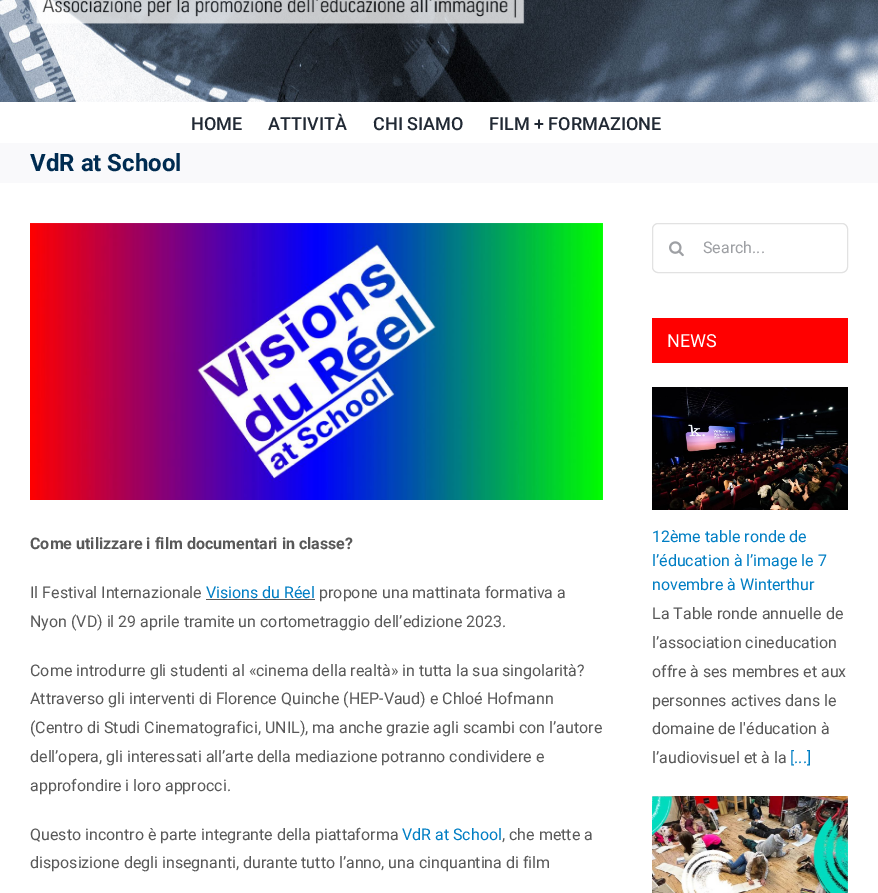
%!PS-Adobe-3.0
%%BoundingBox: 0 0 878 893
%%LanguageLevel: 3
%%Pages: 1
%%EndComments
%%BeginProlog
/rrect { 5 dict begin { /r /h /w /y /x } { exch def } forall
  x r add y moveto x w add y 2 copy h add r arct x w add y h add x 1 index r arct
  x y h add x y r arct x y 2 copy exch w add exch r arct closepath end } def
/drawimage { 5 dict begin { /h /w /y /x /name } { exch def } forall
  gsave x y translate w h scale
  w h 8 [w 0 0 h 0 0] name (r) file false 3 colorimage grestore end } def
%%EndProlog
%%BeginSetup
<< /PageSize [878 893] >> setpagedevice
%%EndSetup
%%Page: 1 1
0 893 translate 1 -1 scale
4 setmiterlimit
1 setgray
0 0 878 893 rectfill
(images/1.raw) 0 0 878 102 drawimage
(images/2.raw) 36 0 489 24 drawimage
0.976 0.976 0.984 setrgbcolor
0 143 878 40 rectfill
(images/3.raw) 30 223 573 277 drawimage
0.349 setgray
206 599 109 1 rectfill
0.886 setgray
652.5 223.5 195 49 5.5 rrect stroke
(images/4.raw) 669 241 15 16 drawimage
1 0 0 setrgbcolor
652 318 196 45 rectfill
(images/5.raw) 652 387 196 123 drawimage
(images/6.raw) 652 796 196 97 drawimage
/Roboto-Medium [18 0 0 -18 0 0] selectfont
0.129 0.161 0.204 setrgbcolor
191 130 moveto (HOME) show
268 130 moveto (ATTIVITÀ) show
373 130 moveto (CHI SIAMO) show
489 130 moveto (FILM + FORMAZIONE) show
/Roboto-Bold [24 0 0 -24 0 0] selectfont
0 0.173 0.318 setrgbcolor
30 171 moveto (VdR at School) show
/Roboto-Bold [16 0 0 -16 0 0] selectfont
0.349 setgray
30 549 moveto (Come utilizzare i film documentari in classe?) show
/Roboto-Regular [16 0 0 -16 0 0] selectfont
30 598 moveto (Il Festival Internazionale) show
0 0.494 0.769 setrgbcolor
206 598 moveto (Visions du Réel) show
0.349 setgray
319 598 moveto (propone una mattinata formativa a) show
30 627 moveto (Nyon \(VD\) il 29 aprile tramite un cortometraggio dell’edizione 2023.) show
30 676 moveto (Come introdurre gli studenti al «cinema della realtà» in tutta la sua singolarità?) show
30 704 moveto (Attraverso gli interventi di Florence Quinche \(HEP-Vaud\) e Chloé Hofmann) show
30 733 moveto (\(Centro di Studi Cinematografici, UNIL\), ma anche grazie agli scambi con l’autore) show
30 762 moveto (dell’opera, gli interessati all’arte della mediazione potranno condividere e) show
30 791 moveto (approfondire i loro approcci.) show
30 840 moveto (Questo incontro è parte integrante della piattaforma) show
0 0.494 0.769 setrgbcolor
402 840 moveto (VdR at School) show
0.349 setgray
502 840 moveto (, che mette a) show
30 868 moveto (disposizione degli insegnanti, durante tutto l’anno, una cinquantina di film) show
0.62 0.627 0.643 setrgbcolor
703 253 moveto (Search...) show
/Roboto-Regular [18 0 0 -18 0 0] selectfont
1 setgray
667 347 moveto (NEWS) show
/Roboto-Regular [16 0 0 -16 0 0] selectfont
0 0.494 0.769 setrgbcolor
652 542 moveto (12ème table ronde de) show
652 566 moveto (l’éducation à l’image le 7) show
652 590 moveto (novembre à Winterthur) show
0.349 setgray
652 619 moveto (La Table ronde annuelle de) show
652 648 moveto (l’association cineducation) show
652 677 moveto (offre à ses membres et aux) show
652 706 moveto (personnes actives dans le) show
652 734 moveto (domaine de l'éducation à) show
652 763 moveto (l’audiovisuel et à la) show
0 0.494 0.769 setrgbcolor
790 763 moveto ([...]) show
showpage
%%EOF
